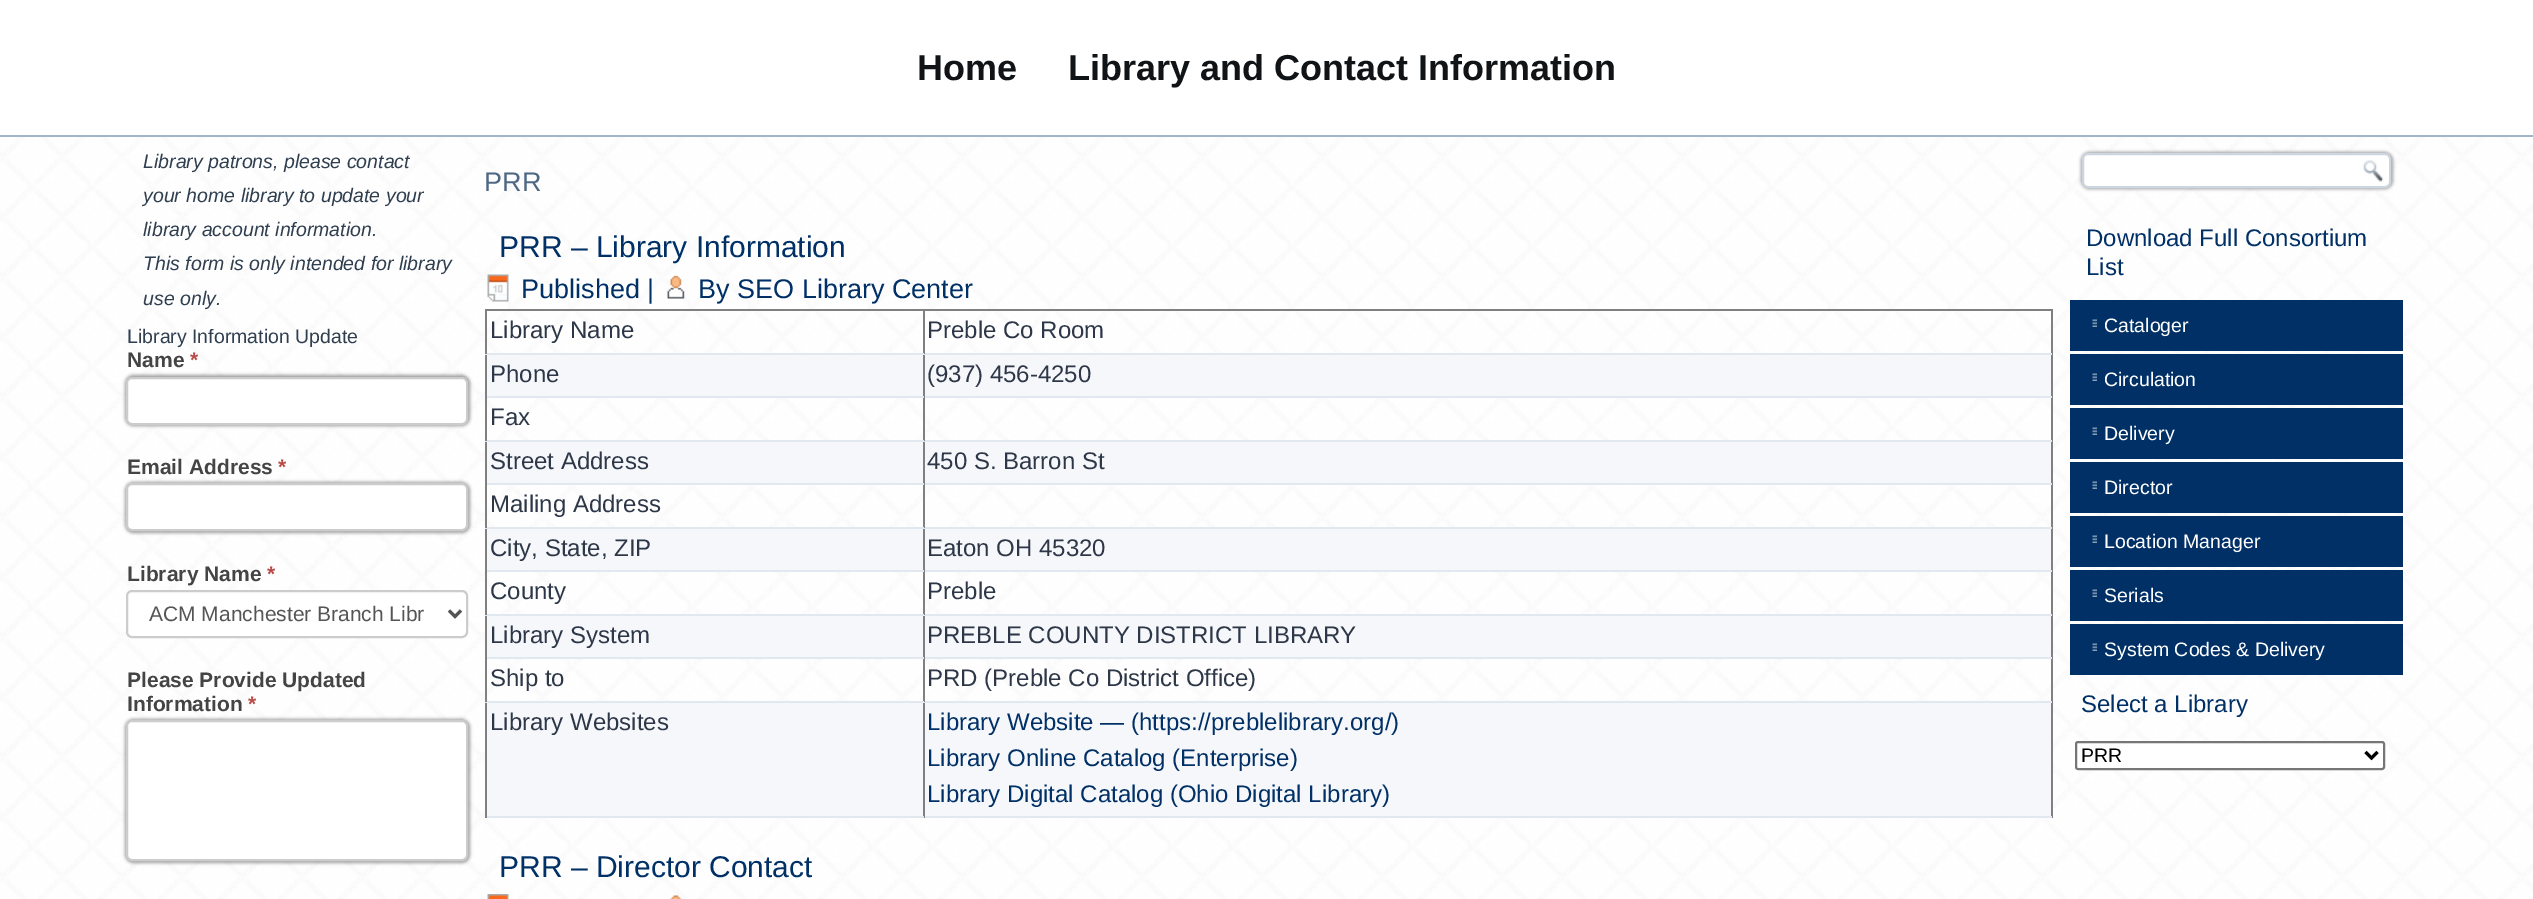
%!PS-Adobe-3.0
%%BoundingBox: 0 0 2533 899
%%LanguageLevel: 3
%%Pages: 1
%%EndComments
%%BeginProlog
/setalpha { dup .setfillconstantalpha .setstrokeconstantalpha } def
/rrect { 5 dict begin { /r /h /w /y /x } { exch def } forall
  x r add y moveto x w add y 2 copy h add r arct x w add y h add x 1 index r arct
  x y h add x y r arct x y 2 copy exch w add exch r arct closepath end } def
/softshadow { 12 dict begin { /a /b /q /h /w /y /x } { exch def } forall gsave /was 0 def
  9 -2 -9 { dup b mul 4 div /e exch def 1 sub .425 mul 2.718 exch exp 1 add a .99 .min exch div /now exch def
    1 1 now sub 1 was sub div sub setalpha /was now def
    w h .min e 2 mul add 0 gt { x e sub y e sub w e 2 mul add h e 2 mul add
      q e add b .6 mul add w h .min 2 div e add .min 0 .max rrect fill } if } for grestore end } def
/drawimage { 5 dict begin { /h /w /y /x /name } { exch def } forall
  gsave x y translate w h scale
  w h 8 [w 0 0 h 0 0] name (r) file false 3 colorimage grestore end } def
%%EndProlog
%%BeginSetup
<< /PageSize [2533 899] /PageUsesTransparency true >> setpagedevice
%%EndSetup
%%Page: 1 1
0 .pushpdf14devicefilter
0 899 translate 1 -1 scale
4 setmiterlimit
1 setgray
0 0 2533 899 rectfill
(images/1.raw) 0 137 2533 762 drawimage
0.639 0.706 0.784 setrgbcolor
0 135 2533 2 rectfill
0 setgray
125 375 345 51 8 1.5 0.35 softshadow
1 setgray
127 378 340 46 5 rrect gsave fill grestore
0.8 setgray
2 setlinewidth
stroke
0 setgray
125 482 345 51 8 1.5 0.35 softshadow
1 setgray
127 484 340 46 5 rrect gsave fill grestore
0.8 setgray
stroke
1 setgray
127 591 340 46 5 rrect gsave fill grestore
0.8 setgray
stroke
0.333 setgray
3 setlinewidth
newpath 449 610.5 moveto 455 616.5 lineto 461 610.5 lineto stroke
0 setgray
125 719 345 144 8 1.5 0.35 softshadow
1 setgray
127 721 340 139 5 rrect gsave fill grestore
0.8 setgray
2 setlinewidth
stroke
(images/2.raw) 487 274 22 28 drawimage
(images/3.raw) 667 275 18 24 drawimage
0.502 setgray
485 309 1567 2 rectfill
2051 309 2 509 rectfill
0.961 0.969 0.98 setrgbcolor
487 355 1564 41 rectfill
487 442 1564 41 rectfill
487 529 1564 41 rectfill
487 616 1564 41 rectfill
487 703 1564 113 rectfill
0.886 0.91 0.941 setrgbcolor
923 816 1129 2 rectfill
0.502 setgray
923 701 2 117 rectfill
0.886 0.91 0.941 setrgbcolor
923 701 1129 2 rectfill
0.502 setgray
923 657 2 45 rectfill
0.886 0.91 0.941 setrgbcolor
923 657 1129 2 rectfill
0.502 setgray
923 614 2 45 rectfill
0.886 0.91 0.941 setrgbcolor
923 614 1129 2 rectfill
0.502 setgray
923 570 2 45 rectfill
0.886 0.91 0.941 setrgbcolor
923 570 1129 2 rectfill
0.502 setgray
923 527 2 45 rectfill
0.886 0.91 0.941 setrgbcolor
923 527 1129 2 rectfill
0.502 setgray
923 483 2 45 rectfill
0.886 0.91 0.941 setrgbcolor
923 483 1129 2 rectfill
0.502 setgray
923 440 2 45 rectfill
0.886 0.91 0.941 setrgbcolor
923 440 1129 2 rectfill
0.502 setgray
923 396 2 45 rectfill
0.886 0.91 0.941 setrgbcolor
923 396 1129 2 rectfill
0.502 setgray
923 353 2 45 rectfill
0.886 0.91 0.941 setrgbcolor
923 353 1129 2 rectfill
0.502 setgray
923 309 2 45 rectfill
0.886 0.91 0.941 setrgbcolor
485 816 439 2 rectfill
0.502 setgray
485 701 2 117 rectfill
0.886 0.91 0.941 setrgbcolor
485 701 439 2 rectfill
0.502 setgray
485 657 2 45 rectfill
0.886 0.91 0.941 setrgbcolor
485 657 439 2 rectfill
0.502 setgray
485 614 2 45 rectfill
0.886 0.91 0.941 setrgbcolor
485 614 439 2 rectfill
0.502 setgray
485 570 2 45 rectfill
0.886 0.91 0.941 setrgbcolor
485 570 439 2 rectfill
0.502 setgray
485 527 2 45 rectfill
0.886 0.91 0.941 setrgbcolor
485 527 439 2 rectfill
0.502 setgray
485 483 2 45 rectfill
0.886 0.91 0.941 setrgbcolor
485 483 439 2 rectfill
0.502 setgray
485 440 2 45 rectfill
0.886 0.91 0.941 setrgbcolor
485 440 439 2 rectfill
0.502 setgray
485 396 2 45 rectfill
0.886 0.91 0.941 setrgbcolor
485 396 439 2 rectfill
0.502 setgray
485 353 2 45 rectfill
0.886 0.91 0.941 setrgbcolor
485 353 439 2 rectfill
0.502 setgray
485 309 2 45 rectfill
(images/4.raw) 487 894 22 5 drawimage
(images/5.raw) 670 895 12 4 drawimage
0 setgray
2081 152 312 37 8 1.5 0.35 softshadow
1 setgray
2083 154 307 33 5 rrect gsave fill grestore
0.8 0.839 0.878 setrgbcolor
stroke
(images/6.raw) 2362 160 22 22 drawimage
0 0.188 0.4 setrgbcolor
2070 300 333 51 rectfill
(images/7.raw) 2092 319 5 8 drawimage
2070 354 333 51 rectfill
(images/7.raw) 2092 373 5 8 drawimage
2070 408 333 51 rectfill
(images/7.raw) 2092 427 5 8 drawimage
2070 462 333 51 rectfill
(images/7.raw) 2092 481 5 8 drawimage
2070 516 333 51 rectfill
(images/7.raw) 2092 535 5 8 drawimage
2070 570 333 51 rectfill
(images/7.raw) 2092 589 5 8 drawimage
2070 624 333 51 rectfill
(images/7.raw) 2092 643 5 8 drawimage
1 setgray
2076 742 308 27 2 rrect gsave fill grestore
0.463 setgray
stroke
0 setgray
3 setlinewidth
newpath 2365.5 752 moveto 2371.5 758 lineto 2377.5 752 lineto stroke
/LiberationSans-Bold [36 0 0 -36 0 0] selectfont
0.067 0.078 0.09 setrgbcolor
917 80 moveto (Home) show
1068 80 moveto (Library and Contact Information) show
/LiberationSans-Italic [19.5 0 0 -19.5 0 0] selectfont
0.188 0.247 0.314 setrgbcolor
143 168 moveto (Library patrons, please contact) show
143 202 moveto (your home library to update your) show
143 236 moveto (library account information.) show
143 270 moveto (This form is only intended for library) show
143 305 moveto (use only.) show
/LiberationSans-Regular [19.5 0 0 -19.5 0 0] selectfont
127 343 moveto (Library Information Update) show
/LiberationSans-Bold [21 0 0 -21 0 0] selectfont
0.267 setgray
127 367 moveto (Name) show
0.725 0.29 0.282 setrgbcolor
190 367 moveto (*) show
0.267 setgray
127 474 moveto (Email Address) show
0.725 0.29 0.282 setrgbcolor
278 474 moveto (*) show
0.267 setgray
127 581 moveto (Library Name) show
0.725 0.29 0.282 setrgbcolor
267 581 moveto (*) show
/LiberationSans-Regular [21 0 0 -21 0 0] selectfont
0.333 setgray
149 621 moveto (ACM Manchester Branch Libr) show
/LiberationSans-Bold [21 0 0 -21 0 0] selectfont
0.267 setgray
127 687 moveto (Please Provide Updated) show
127 711 moveto (Information) show
0.725 0.29 0.282 setrgbcolor
248 711 moveto (*) show
/LiberationSans-Regular [27 0 0 -27 0 0] selectfont
0.306 0.408 0.514 setrgbcolor
484 191 moveto (PRR) show
/LiberationSans-Regular [30 0 0 -30 0 0] selectfont
0 0.188 0.4 setrgbcolor
499 257 moveto (PRR – Library Information) show
/LiberationSans-Regular [27 0 0 -27 0 0] selectfont
521 298 moveto (Published |) show
698 298 moveto (By SEO Library Center) show
/LiberationSans-Regular [24 0 0 -24 0 0] selectfont
0.176 0.216 0.282 setrgbcolor
490 338 moveto (Library Name) show
927 338 moveto (Preble Co Room) show
490 382 moveto (Phone) show
927 382 moveto (\(937\) 456-4250) show
490 425 moveto (Fax) show
490 469 moveto (Street Address) show
927 469 moveto (450 S. Barron St) show
490 512 moveto (Mailing Address) show
490 556 moveto (City, State, ZIP) show
927 556 moveto (Eaton OH 45320) show
490 599 moveto (County) show
927 599 moveto (Preble) show
490 643 moveto (Library System) show
927 643 moveto (PREBLE COUNTY DISTRICT LIBRARY) show
490 686 moveto (Ship to) show
927 686 moveto (PRD \(Preble Co District Office\)) show
490 730 moveto (Library Websites) show
0 0.188 0.4 setrgbcolor
927 730 moveto (Library Website — \(https://preblelibrary.org/\)) show
927 766 moveto (Library Online Catalog \(Enterprise\)) show
927 802 moveto (Library Digital Catalog \(Ohio Digital Library\)) show
/LiberationSans-Regular [30 0 0 -30 0 0] selectfont
499 877 moveto (PRR – Director Contact) show
/LiberationSans-Regular [24 0 0 -24 0 0] selectfont
2086 246 moveto (Download Full Consortium) show
2086 275 moveto (List) show
/LiberationSans-Regular [19.5 0 0 -19.5 0 0] selectfont
1 setgray
2104 332 moveto (Cataloger) show
2104 386 moveto (Circulation) show
2104 440 moveto (Delivery) show
2104 494 moveto (Director) show
2104 548 moveto (Location Manager) show
2104 602 moveto (Serials) show
2104 656 moveto (System Codes & Delivery) show
/LiberationSans-Regular [24 0 0 -24 0 0] selectfont
0 0.188 0.4 setrgbcolor
2081 712 moveto (Select a Library) show
/LiberationSans-Regular [19.5 0 0 -19.5 0 0] selectfont
0 setgray
2081 762 moveto (PRR) show
.poppdf14devicefilter showpage
%%EOF
